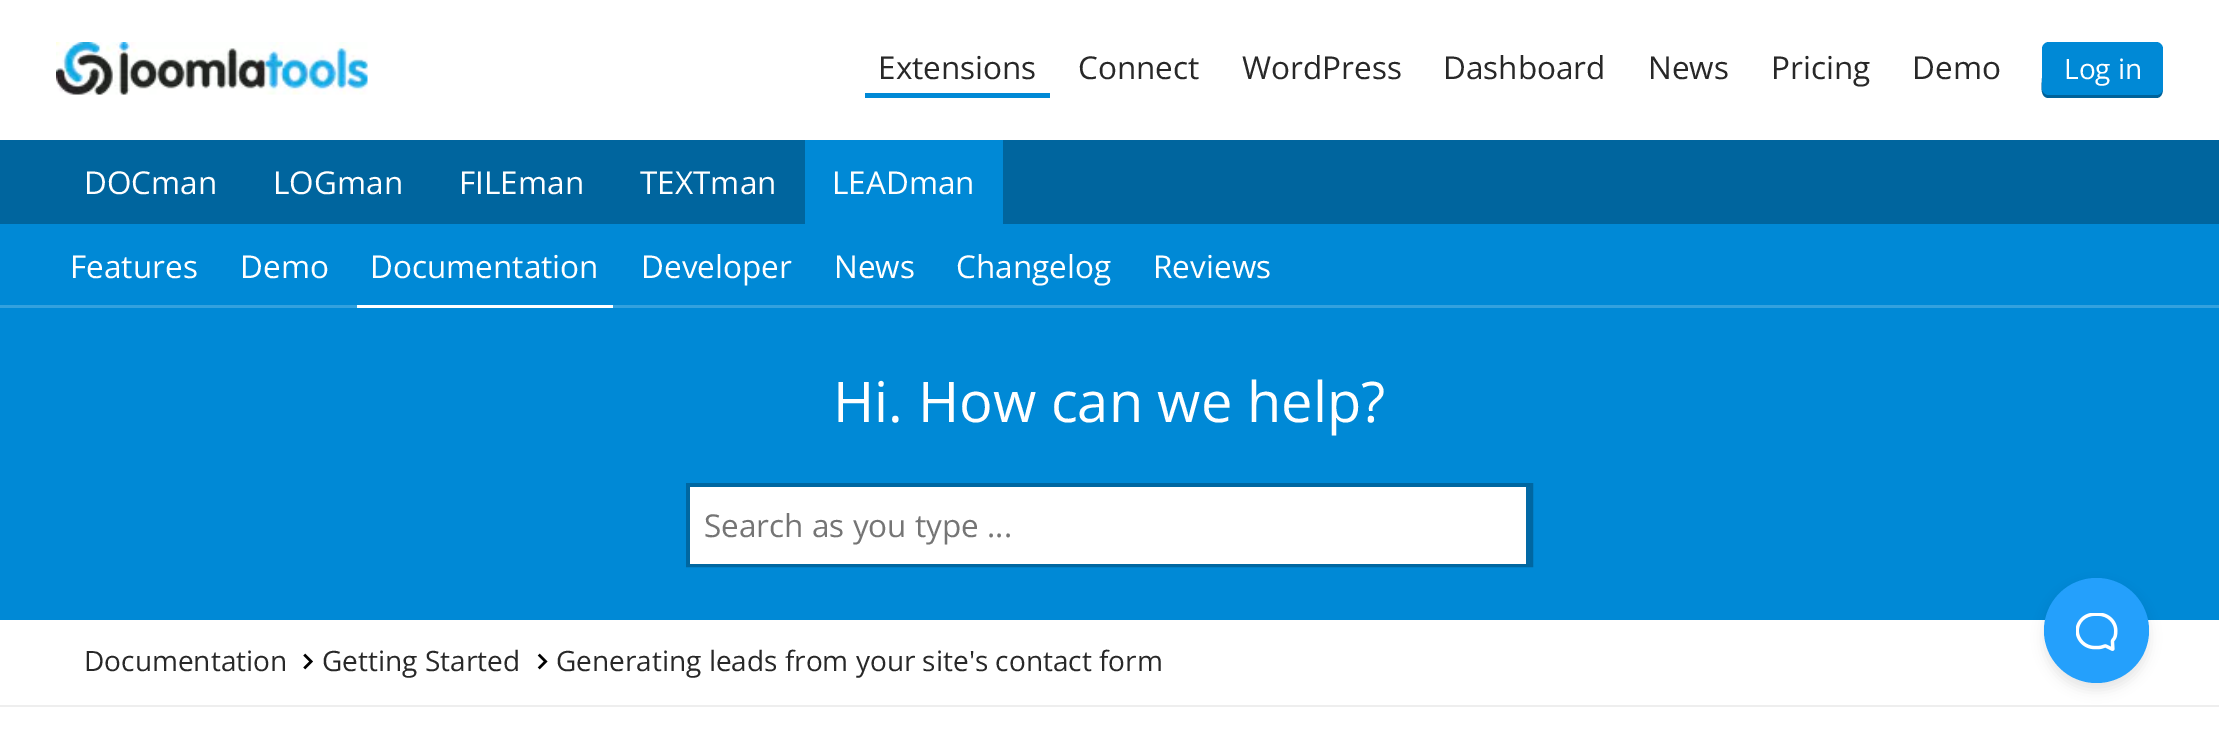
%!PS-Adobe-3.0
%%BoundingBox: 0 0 2219 752
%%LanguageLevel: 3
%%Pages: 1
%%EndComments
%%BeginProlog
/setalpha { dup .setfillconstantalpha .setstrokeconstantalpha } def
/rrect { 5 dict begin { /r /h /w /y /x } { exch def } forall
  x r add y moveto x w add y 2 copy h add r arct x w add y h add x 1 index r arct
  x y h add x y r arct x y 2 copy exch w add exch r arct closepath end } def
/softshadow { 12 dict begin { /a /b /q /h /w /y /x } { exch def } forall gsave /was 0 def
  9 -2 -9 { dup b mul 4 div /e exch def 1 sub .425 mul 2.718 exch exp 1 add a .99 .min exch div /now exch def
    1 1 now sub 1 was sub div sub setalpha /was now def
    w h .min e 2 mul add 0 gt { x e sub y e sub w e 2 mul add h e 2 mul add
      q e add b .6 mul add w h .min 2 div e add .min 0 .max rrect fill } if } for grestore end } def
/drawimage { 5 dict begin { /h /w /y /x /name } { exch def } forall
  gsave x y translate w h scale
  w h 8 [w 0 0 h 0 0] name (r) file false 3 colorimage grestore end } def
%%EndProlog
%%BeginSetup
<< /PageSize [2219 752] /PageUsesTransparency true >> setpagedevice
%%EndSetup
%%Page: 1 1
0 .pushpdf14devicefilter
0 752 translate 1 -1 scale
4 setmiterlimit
1 setgray
0 0 2219 752 rectfill
(images/1.raw) 56 42 312 53 drawimage
0 0.537 0.839 setrgbcolor
865 93 185 5 rectfill
0 0.384 0.6 setrgbcolor
newpath 2042 51 moveto 2042 78 lineto 2042 84 2039 98 2049 98 curveto 2156 98 lineto 2162 98 2163 92 2163 88 curveto 2163 91 2160 94 2156 94 curveto 2049 94 lineto 2045 94 2042 91 2042 88 curveto closepath fill
0 0.537 0.839 setrgbcolor
2042 42 121 53 7 rrect fill
0 0.396 0.62 setrgbcolor
0 140 2219 84 rectfill
0 0.537 0.839 setrgbcolor
805 140 198 84 rectfill
0 224 2219 81 rectfill
0.2 0.631 0.871 setrgbcolor
0 305 2219 3 rectfill
1 setgray
357 305 256 3 rectfill
0 0.537 0.839 setrgbcolor
0 308 2219 312 rectfill
0 0.404 0.631 setrgbcolor
4 setlinewidth
688 485 843 80 rectstroke
1 setgray
690 487 836 77 rectfill
0.008 0.412 0.651 setrgbcolor
1526 487 4 77 rectfill
0.933 setgray
0 705 2219 2 rectfill
(images/2.raw) 303 653 10 17 drawimage
(images/3.raw) 537 653 11 17 drawimage
0 setgray
2044 585 105 105 52.5 6 0.1 softshadow
0.141 0.627 0.988 setrgbcolor
newpath 2096.5 630.5 52.5 0 360 arc closepath fill
(images/4.raw) 2076 613 42 38 drawimage
/OpenSans-Regular [31.5 0 0 -31.5 0 0] selectfont
0.157 setgray
878 79 moveto (Extensions) show
1078 79 moveto (Connect) show
1242 79 moveto (WordPress) show
1443 79 moveto (Dashboard) show
1648 79 moveto (News) show
1771 79 moveto (Pricing) show
1912 79 moveto (Demo) show
/OpenSans-Regular [28 0 0 -28 0 0] selectfont
1 setgray
2064 79 moveto (Log in) show
/OpenSans-Regular [31.5 0 0 -31.5 0 0] selectfont
84 194 moveto (DOCman) show
273 194 moveto (LOGman) show
459 194 moveto (FILEman) show
640 194 moveto (TEXTman) show
832 194 moveto (LEADman) show
70 278 moveto (Features) show
240 278 moveto (Demo) show
370 278 moveto (Documentation) show
641 278 moveto (Developer) show
834 278 moveto (News) show
956 278 moveto (Changelog) show
1153 278 moveto (Reviews) show
/OpenSans-Regular [56 0 0 -56 0 0] selectfont
833 422 moveto (Hi. How can we help?) show
/OpenSans-Regular [31.5 0 0 -31.5 0 0] selectfont
0.459 setgray
704 537 moveto (Search as you type ...) show
/OpenSans-Regular [28 0 0 -28 0 0] selectfont
0.157 setgray
84 671 moveto (Documentation) show
322 671 moveto (Getting Started) show
556 671 moveto (Generating leads from your site's contact form) show
.poppdf14devicefilter showpage
%%EOF
